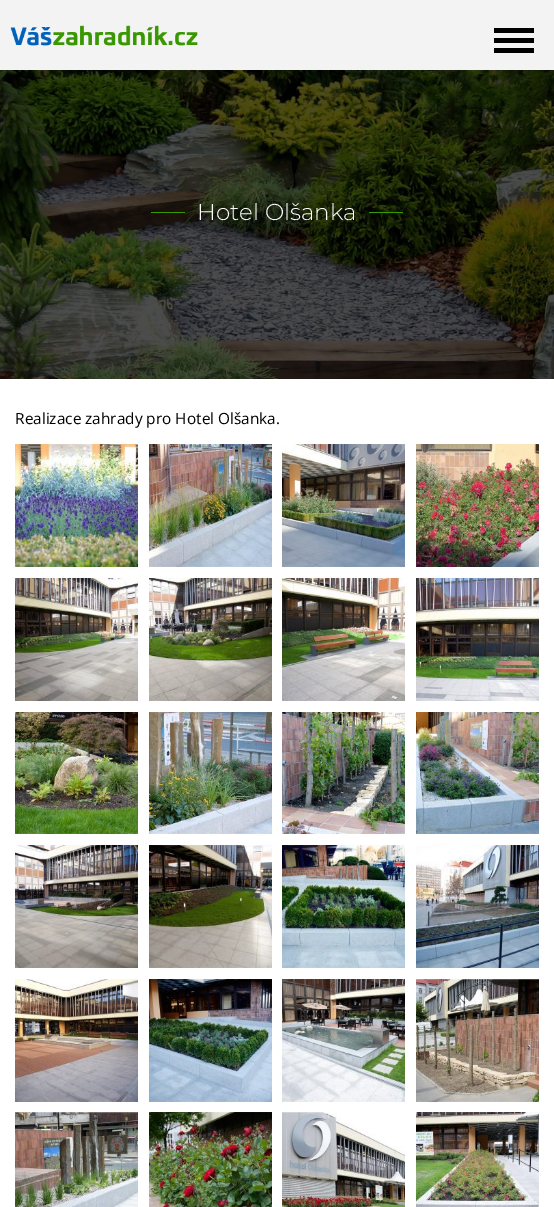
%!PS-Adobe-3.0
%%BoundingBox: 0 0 554 1207
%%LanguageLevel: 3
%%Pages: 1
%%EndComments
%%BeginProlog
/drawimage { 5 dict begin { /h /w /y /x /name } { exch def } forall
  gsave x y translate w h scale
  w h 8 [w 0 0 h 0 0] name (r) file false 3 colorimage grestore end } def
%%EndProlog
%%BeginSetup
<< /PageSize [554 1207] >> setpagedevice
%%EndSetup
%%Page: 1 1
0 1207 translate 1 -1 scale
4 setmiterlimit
1 setgray
0 0 554 1207 rectfill
0.953 setgray
0 0 554 70 rectfill
(images/1.raw) 10 25 188 21 drawimage
0 setgray
494 28 40 5 rectfill
494 38 40 5 rectfill
494 48 40 5 rectfill
(images/2.raw) 0 70 554 309 drawimage
0.224 0.592 0.004 setrgbcolor
151 212 34 1 rectfill
369 212 34 1 rectfill
(images/3.raw) 15 444 123 123 drawimage
(images/4.raw) 149 444 123 123 drawimage
(images/5.raw) 282 444 123 123 drawimage
(images/6.raw) 416 444 123 123 drawimage
(images/7.raw) 15 578 123 123 drawimage
(images/8.raw) 149 578 123 123 drawimage
(images/9.raw) 282 578 123 123 drawimage
(images/10.raw) 416 578 123 123 drawimage
(images/11.raw) 15 712 123 122 drawimage
(images/12.raw) 149 712 123 122 drawimage
(images/13.raw) 282 712 123 122 drawimage
(images/14.raw) 416 712 123 122 drawimage
(images/15.raw) 15 845 123 123 drawimage
(images/16.raw) 149 845 123 123 drawimage
(images/17.raw) 282 845 123 123 drawimage
(images/18.raw) 416 845 123 123 drawimage
(images/19.raw) 15 979 123 123 drawimage
(images/20.raw) 149 979 123 123 drawimage
(images/21.raw) 282 979 123 123 drawimage
(images/22.raw) 416 979 123 123 drawimage
(images/23.raw) 15 1112 123 95 drawimage
(images/24.raw) 149 1112 123 95 drawimage
(images/25.raw) 282 1112 123 95 drawimage
(images/26.raw) 416 1112 123 95 drawimage
/Montserrat-Light [23 0 0 -23 0 0] selectfont
1 setgray
197 220 moveto (Hotel Olšanka) show
/OpenSans-Regular [15.4 0 0 -15.4 0 0] selectfont
0 setgray
15 424 moveto (Realizace zahrady pro Hotel Olšanka.) show
showpage
%%EOF
